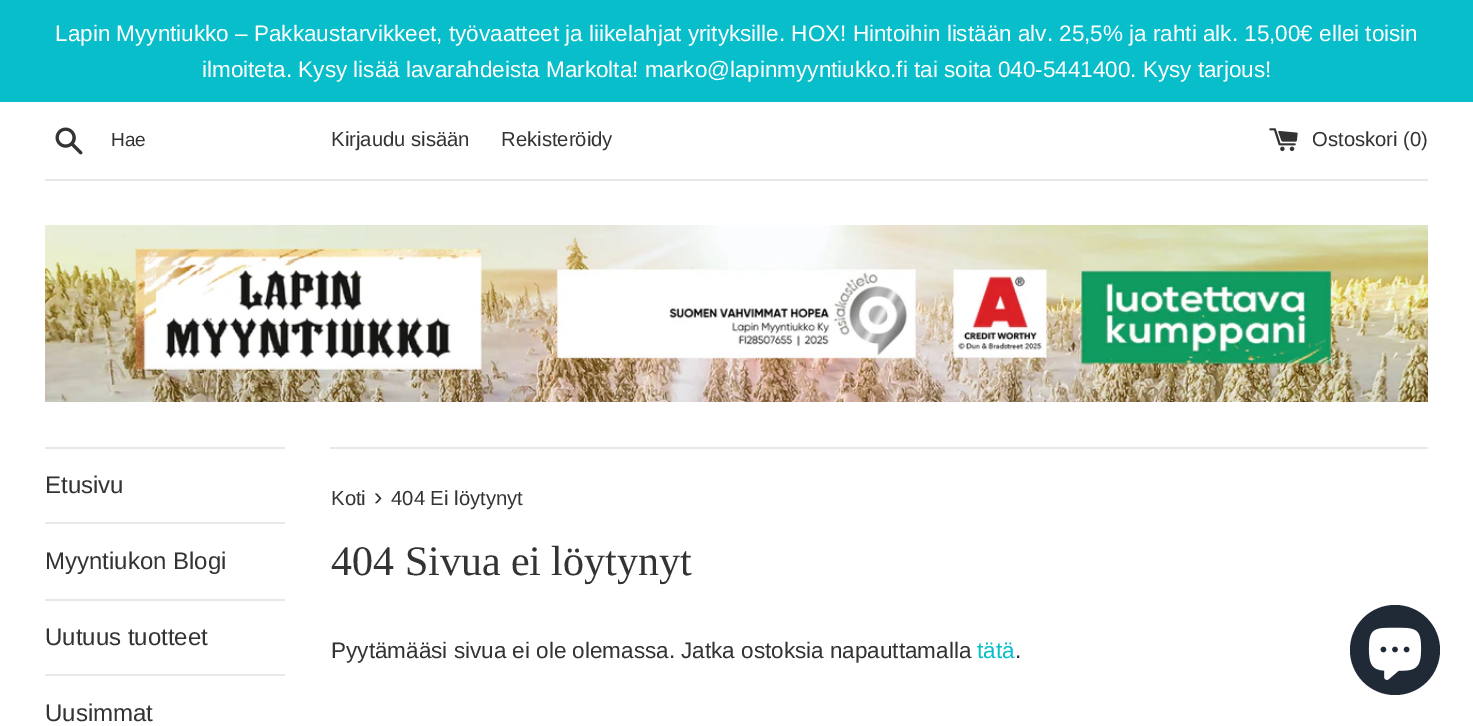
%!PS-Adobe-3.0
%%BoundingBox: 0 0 1473 726
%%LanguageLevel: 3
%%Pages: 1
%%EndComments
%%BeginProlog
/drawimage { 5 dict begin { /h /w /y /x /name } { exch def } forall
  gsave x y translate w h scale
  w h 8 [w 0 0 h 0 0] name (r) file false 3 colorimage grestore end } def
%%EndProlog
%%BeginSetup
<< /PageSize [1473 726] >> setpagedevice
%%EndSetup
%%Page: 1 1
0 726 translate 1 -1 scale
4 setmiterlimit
1 setgray
0 0 1473 726 rectfill
0.031 0.745 0.796 setrgbcolor
0 0 1473 102 rectfill
(images/1.raw) 55 127 28 28 drawimage
(images/2.raw) 1269 128 29 24 drawimage
0.91 setgray
45 179 1383 2 rectfill
(images/3.raw) 45 225 1383 177 drawimage
45 447 240 2 rectfill
45 522 240 2 rectfill
45 599 240 2 rectfill
45 674 240 2 rectfill
330 447 1098 2 rectfill
0.125 0.165 0.212 setrgbcolor
newpath 1395 650 45 0 360 arc closepath fill
(images/4.raw) 1368 627 54 53 drawimage
/LiberationSans-Regular [22.5 0 0 -22.5 0 0] selectfont
1 setgray
55 41 moveto (Lapin Myyntiukko – Pakkaustarvikkeet, työvaatteet ja liikelahjat yrityksille. HOX! Hintoihin listään alv. 25,5% ja rahti alk. 15,00€ ellei toisin) show
202 77 moveto (ilmoiteta. Kysy lisää lavarahdeista Markolta! marko@lapinmyyntiukko.fi tai soita 040-5441400. Kysy tarjous!) show
/LiberationSans-Regular [19 0 0 -19 0 0] selectfont
0.2 setgray
111 146 moveto (Hae) show
/LiberationSans-Regular [20.25 0 0 -20.25 0 0] selectfont
331 146 moveto (Kirjaudu sisään) show
501 146 moveto (Rekisteröidy) show
1312 146 moveto (Ostoskori \(0\)) show
/LiberationSans-Regular [24 0 0 -24 0 0] selectfont
45 493 moveto (Etusivu) show
45 569 moveto (Myyntiukon Blogi) show
45 645 moveto (Uutuus tuotteet) show
45 721 moveto (Uusimmat) show
/LiberationSans-Regular [20.25 0 0 -20.25 0 0] selectfont
331 505 moveto (Koti) show
/LiberationSans-Regular [25 0 0 -25 0 0] selectfont
374 505 moveto (›) show
/LiberationSans-Regular [20.25 0 0 -20.25 0 0] selectfont
391 505 moveto (404 Ei löytynyt) show
/LiberationSerif-Regular [42 0 0 -42 0 0] selectfont
331 575 moveto (404 Sivua ei löytynyt) show
/LiberationSans-Regular [22.5 0 0 -22.5 0 0] selectfont
331 658 moveto (Pyytämääsi sivua ei ole olemassa. Jatka ostoksia napauttamalla) show
0.031 0.745 0.796 setrgbcolor
977 658 moveto (tätä) show
0.2 setgray
1015 658 moveto (.) show
showpage
%%EOF
